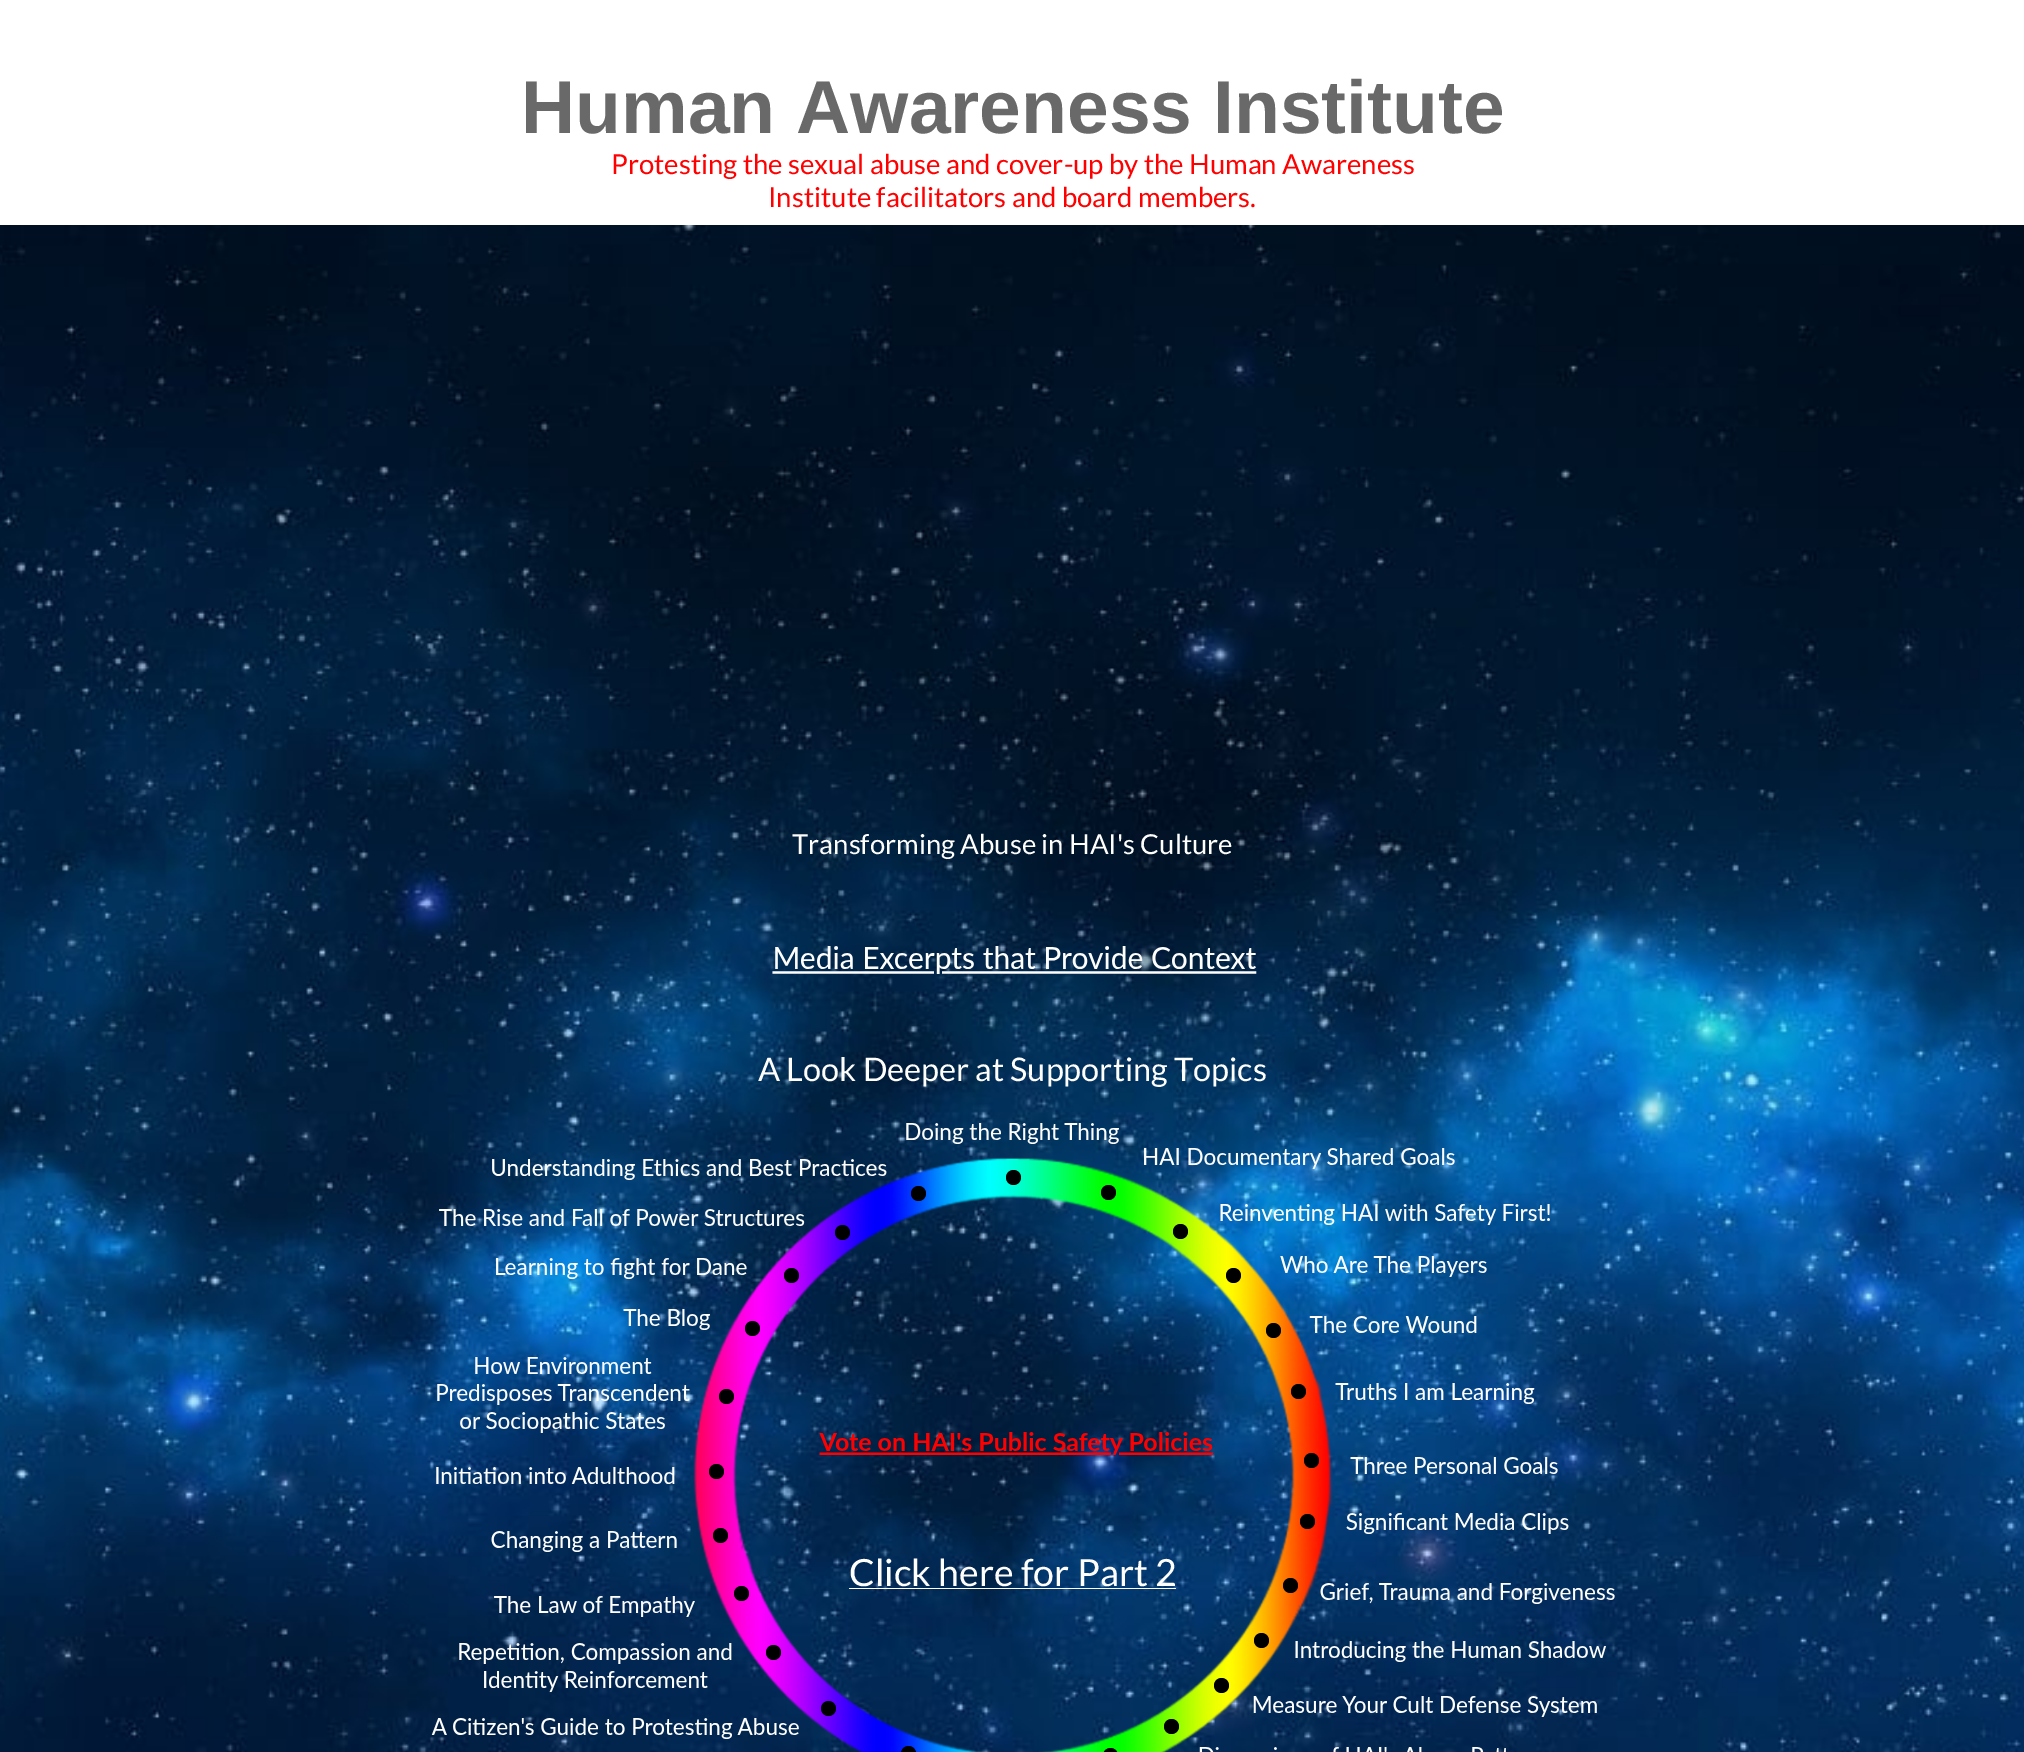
%!PS-Adobe-3.0
%%BoundingBox: 0 0 2024 1752
%%LanguageLevel: 3
%%Pages: 1
%%EndComments
%%BeginProlog
/rrect { 5 dict begin { /r /h /w /y /x } { exch def } forall
  x r add y moveto x w add y 2 copy h add r arct x w add y h add x 1 index r arct
  x y h add x y r arct x y 2 copy exch w add exch r arct closepath end } def
/drawimage { 5 dict begin { /h /w /y /x /name } { exch def } forall
  gsave x y translate w h scale
  w h 8 [w 0 0 h 0 0] name (r) file false 3 colorimage grestore end } def
%%EndProlog
%%BeginSetup
<< /PageSize [2024 1752] >> setpagedevice
%%EndSetup
%%Page: 1 1
0 1752 translate 1 -1 scale
4 setmiterlimit
1 setgray
0 0 2024 1752 rectfill
(images/26.raw) 0 225 2024 1527 drawimage
(images/1.raw) 772 946 485 28 drawimage
(images/2.raw) 906 1123 213 21 drawimage
(images/5.raw) 693 1158 640 594 drawimage
(images/3.raw) 1144 1148 311 21 drawimage
(images/4.raw) 492 1159 395 21 drawimage
0 setgray
newpath 1013.5 1177.5 7.5 0 360 arc closepath fill
newpath 918.5 1193.5 7.5 0 360 arc closepath fill
newpath 1108.5 1192.5 7.5 0 360 arc closepath fill
(images/6.raw) 439 1209 366 17 drawimage
(images/7.raw) 1220 1204 330 21 drawimage
newpath 842.5 1232.5 7.5 0 360 arc closepath fill
newpath 1180.5 1231.5 7.5 0 360 arc closepath fill
(images/8.raw) 496 1258 251 21 drawimage
newpath 791.5 1275.5 7.5 0 360 arc closepath fill
newpath 1233.5 1275.5 7.5 0 360 arc closepath fill
(images/9.raw) 1280 1256 207 21 drawimage
(images/10.raw) 623 1309 87 21 drawimage
newpath 752.5 1328.5 7.5 0 360 arc closepath fill
newpath 1273.5 1330.5 7.5 0 360 arc closepath fill
(images/11.raw) 1309 1316 168 17 drawimage
(images/12.raw) 437 1357 253 76 drawimage
newpath 726.5 1396.5 7.5 0 360 arc closepath fill
newpath 1298.5 1391.5 7.5 0 360 arc closepath fill
(images/13.raw) 1335 1383 200 21 drawimage
(images/14.raw) 819 1432 394 23 drawimage
(images/15.raw) 436 1467 239 17 drawimage
newpath 716.5 1471.5 7.5 0 360 arc closepath fill
newpath 1311.5 1460.5 7.5 0 360 arc closepath fill
(images/16.raw) 1350 1457 208 17 drawimage
newpath 1307.5 1521.5 7.5 0 360 arc closepath fill
(images/17.raw) 1346 1513 223 21 drawimage
(images/18.raw) 491 1531 186 21 drawimage
newpath 720.5 1535.5 7.5 0 360 arc closepath fill
newpath 741.5 1593.5 7.5 0 360 arc closepath fill
1 setgray
849 1588 327 1 rectfill
0 setgray
newpath 1290.5 1585.5 7.5 0 360 arc closepath fill
(images/19.raw) 1320 1583 295 21 drawimage
(images/20.raw) 494 1596 201 21 drawimage
(images/21.raw) 459 1643 273 49 drawimage
newpath 773.5 1652.5 7.5 0 360 arc closepath fill
newpath 1261.5 1640.5 7.5 0 360 arc closepath fill
(images/22.raw) 1295 1641 311 21 drawimage
newpath 1221.5 1685.5 7.5 0 360 arc closepath fill
newpath 828.5 1708.5 7.5 0 360 arc closepath fill
(images/23.raw) 1253 1696 344 21 drawimage
(images/24.raw) 431 1718 368 21 drawimage
newpath 1171.5 1726.5 7.5 0 360 arc closepath fill
901 1746 15 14 7.5 rrect fill
1103 1748 15 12 7.5 rrect fill
(images/25.raw) 1199 1747 307 5 drawimage
/LiberationSans-Bold [75 0 0 -75 0 0] selectfont
0.412 setgray
521 133 moveto (Human Awareness Institute) show
/Lato-Regular [27.5 0 0 -27.5 0 0] selectfont
1 0 0 setrgbcolor
611 174 moveto (Protesting the sexual abuse and cover-up by the Human Awareness) show
768 207 moveto (Institute facilitators and board members.) show
1 setgray
792 854 moveto (Transforming Abuse in HAI's Culture) show
/Lato-Regular [32.5 0 0 -32.5 0 0] selectfont
758 1081 moveto (A Look Deeper at Supporting Topics) show
/Lato-Regular [37.5 0 0 -37.5 0 0] selectfont
849 1586 moveto (Click here for Part 2) show
showpage
%%EOF
